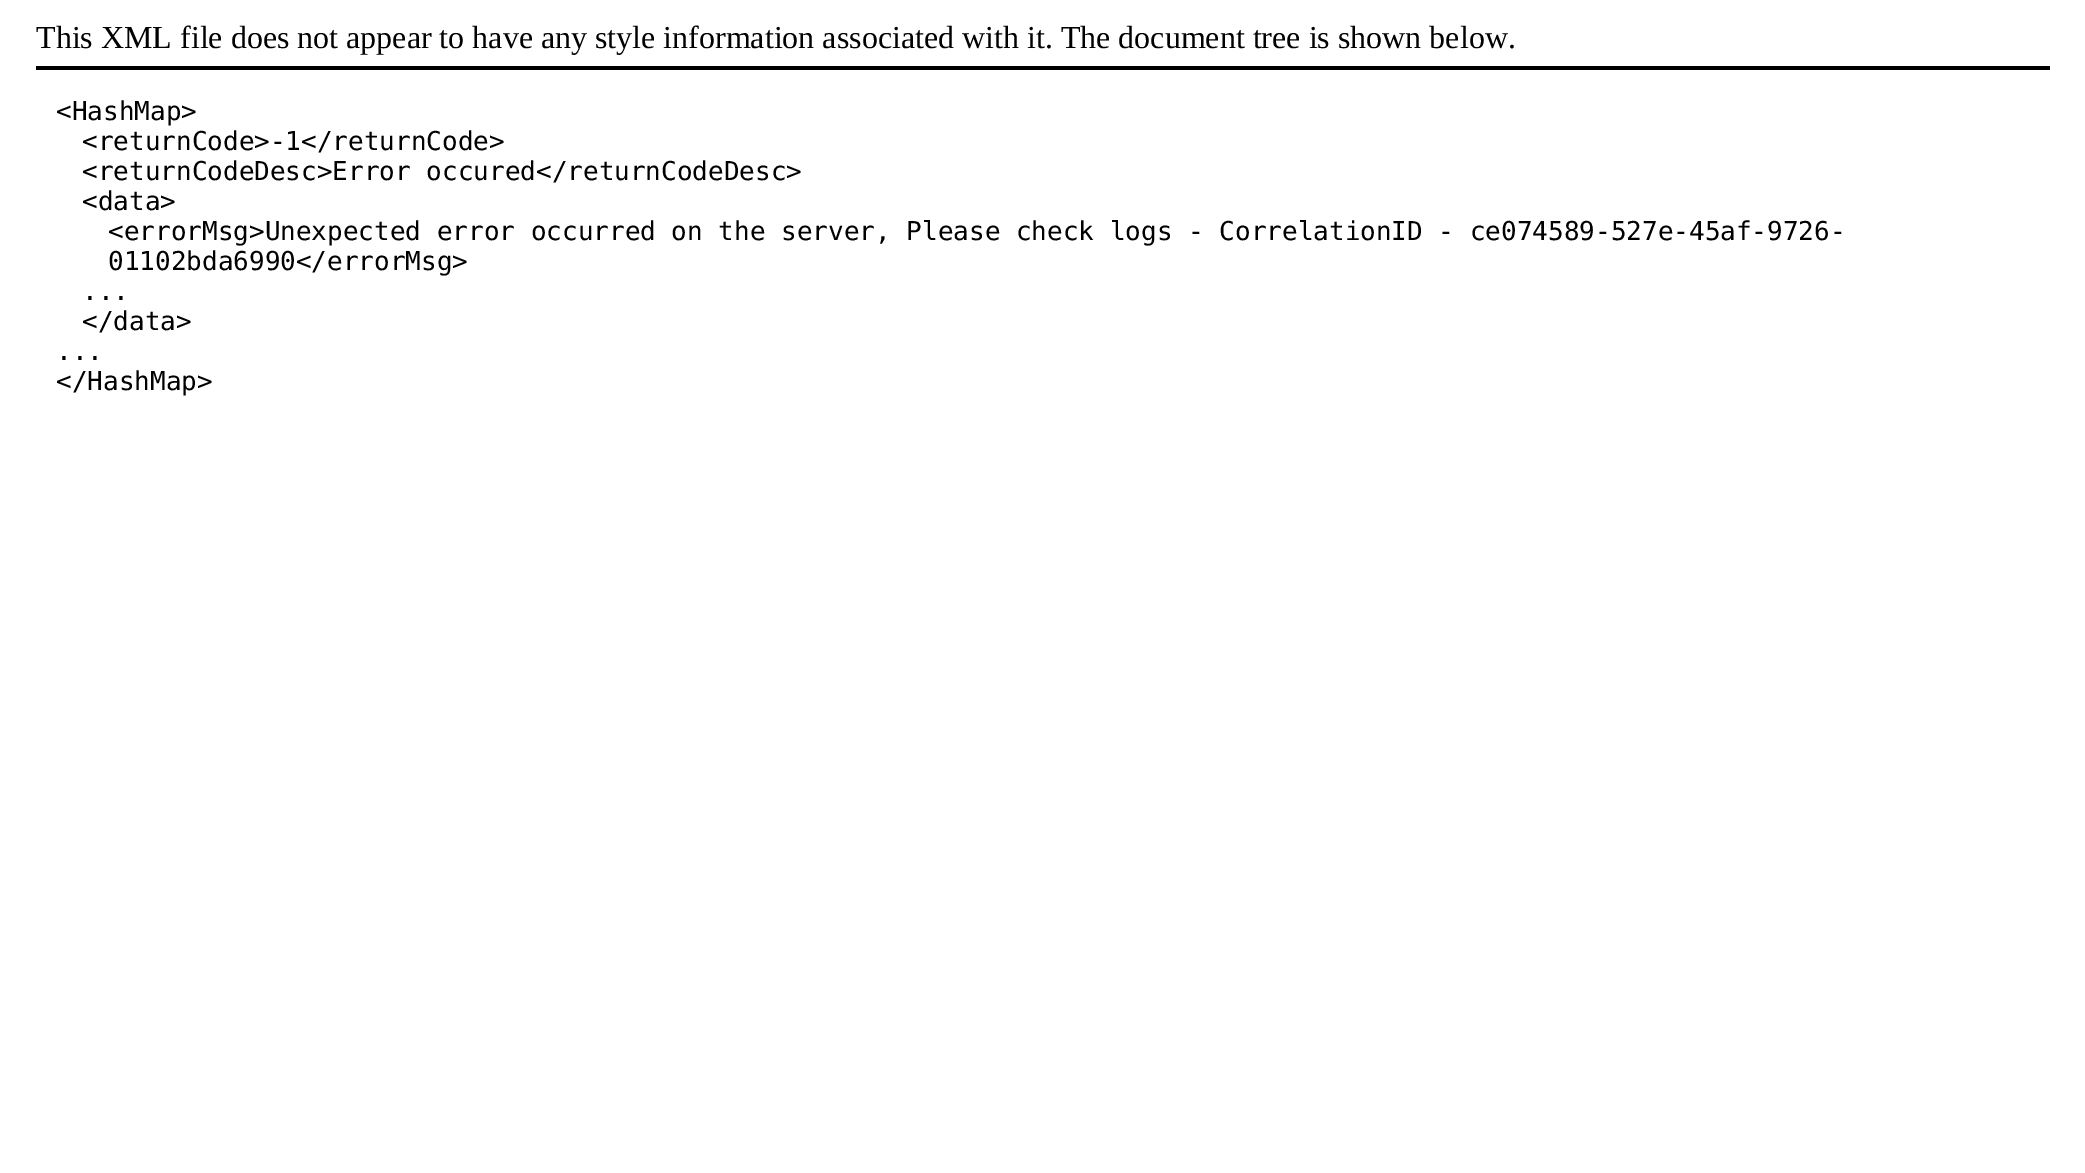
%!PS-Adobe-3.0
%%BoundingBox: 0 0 2085 1173
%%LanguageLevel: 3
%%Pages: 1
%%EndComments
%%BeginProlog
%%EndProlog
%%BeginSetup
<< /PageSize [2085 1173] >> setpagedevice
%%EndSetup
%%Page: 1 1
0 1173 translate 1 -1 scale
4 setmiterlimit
1 setgray
0 0 2085 1173 rectfill
0 setgray
36 66 2014 4 rectfill
/LiberationSerif-Regular [32 0 0 -32 0 0] selectfont
36 48 moveto (This XML file does not appear to have any style information associated with it. The document tree is shown below.) show
/DejaVuSansMono-Regular [26 0 0 -26 0 0] selectfont
56 120 moveto (<HashMap>) show
82 150 moveto (<returnCode>-1</returnCode>) show
82 180 moveto (<returnCodeDesc>Error occured</returnCodeDesc>) show
82 210 moveto (<data>) show
108 240 moveto (<errorMsg>Unexpected error occurred on the server, Please check logs - CorrelationID - ce074589-527e-45af-9726-) show
108 270 moveto (01102bda6990</errorMsg>) show
82 300 moveto (...) show
82 330 moveto (</data>) show
56 360 moveto (...) show
56 390 moveto (</HashMap>) show
showpage
%%EOF
